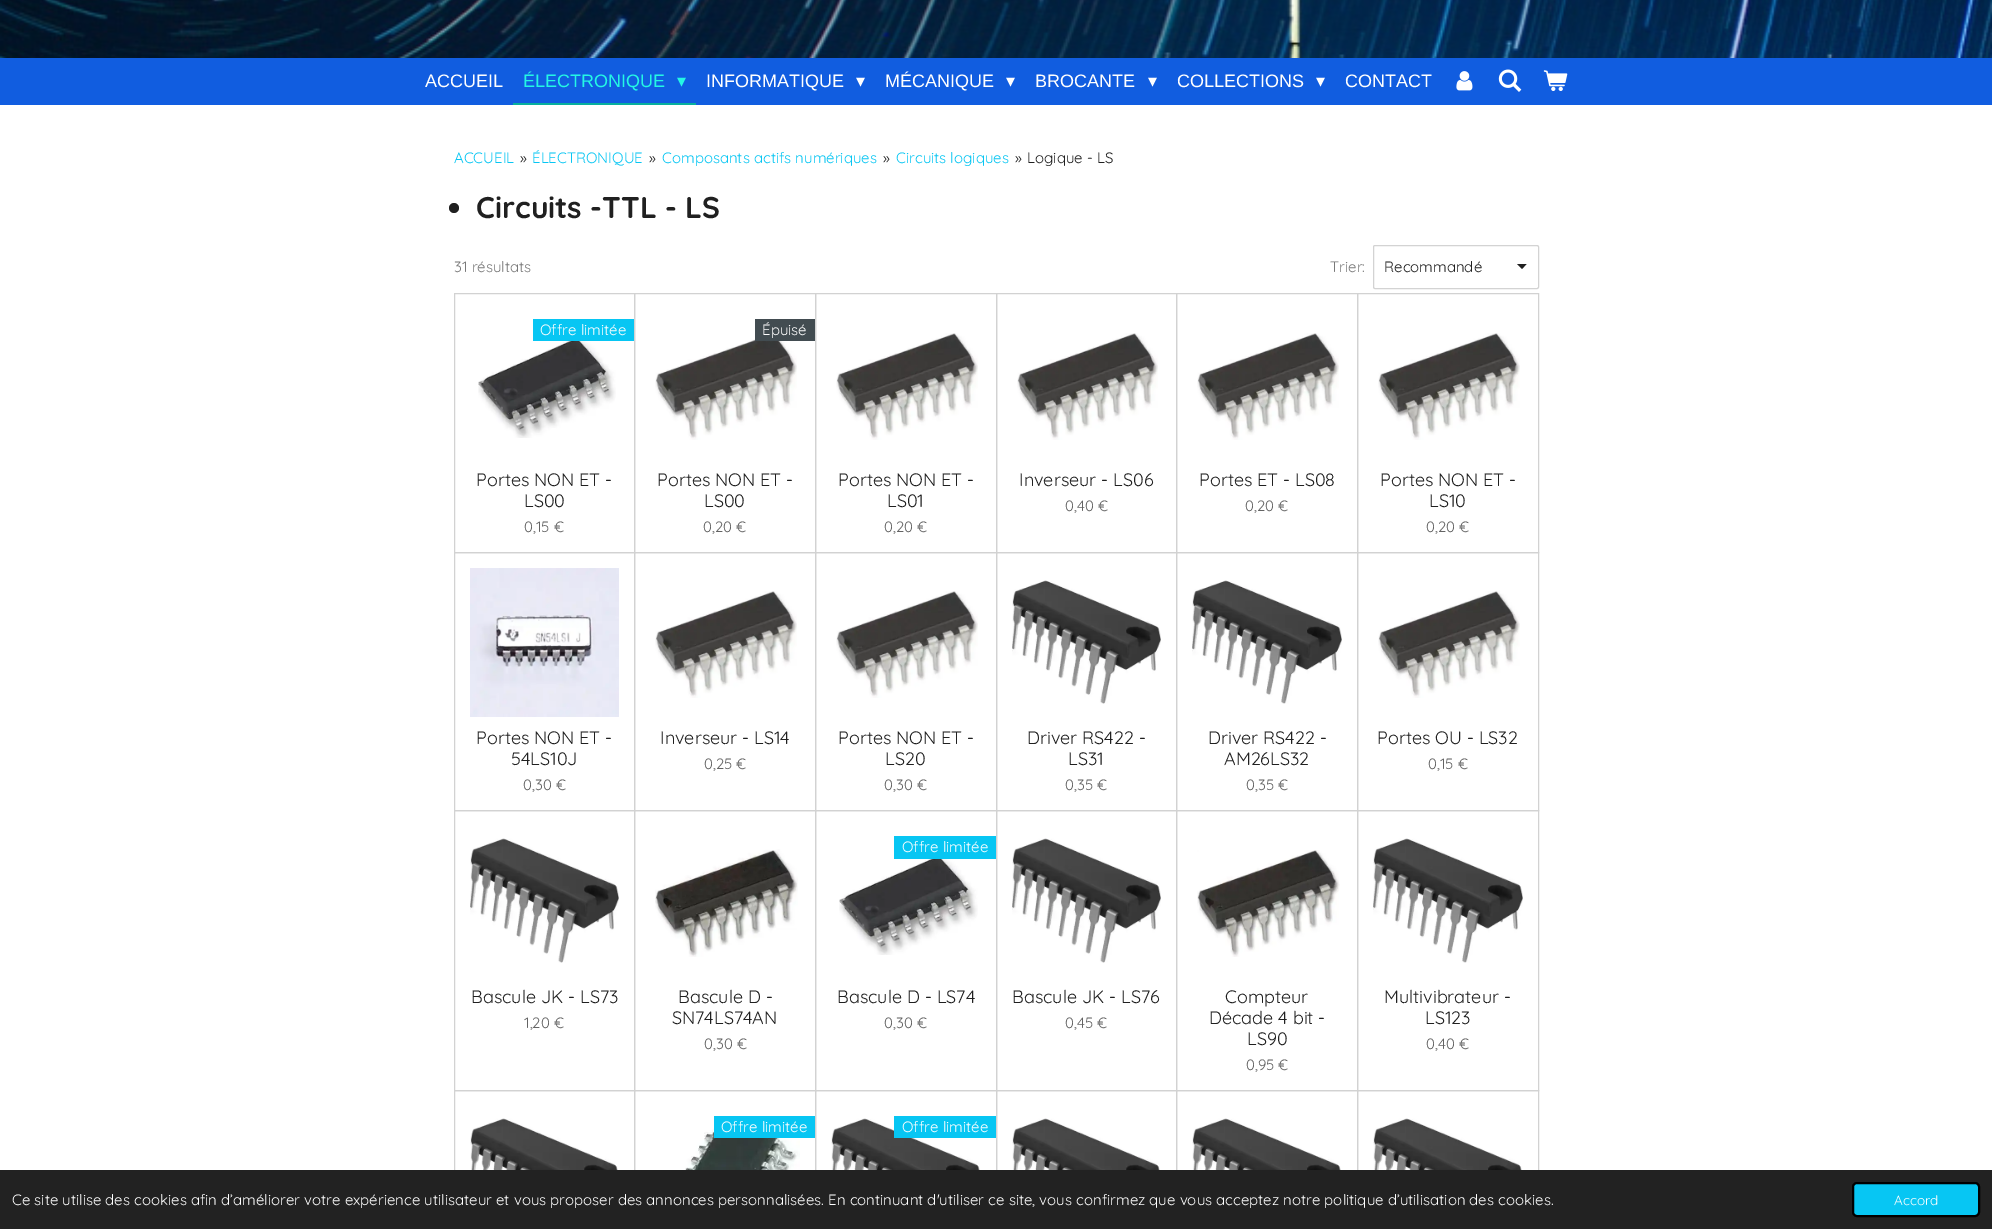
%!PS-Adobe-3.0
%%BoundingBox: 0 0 1992 1229
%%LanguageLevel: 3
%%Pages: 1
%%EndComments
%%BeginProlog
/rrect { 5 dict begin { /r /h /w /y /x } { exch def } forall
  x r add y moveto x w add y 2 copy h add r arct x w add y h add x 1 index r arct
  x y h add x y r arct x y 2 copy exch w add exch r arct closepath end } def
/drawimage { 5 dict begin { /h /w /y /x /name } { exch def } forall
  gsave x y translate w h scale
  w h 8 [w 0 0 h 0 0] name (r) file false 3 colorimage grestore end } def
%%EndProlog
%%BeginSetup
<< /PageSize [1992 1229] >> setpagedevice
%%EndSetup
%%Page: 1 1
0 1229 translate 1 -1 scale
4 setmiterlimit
1 setgray
0 0 1992 1229 rectfill
(images/1.raw) 0 0 1992 58 drawimage
0.067 0.365 0.878 setrgbcolor
0 58 1992 47 rectfill
0.024 0.686 0.624 setrgbcolor
513 103 183 2 rectfill
(images/2.raw) 1456 71 17 20 drawimage
(images/3.raw) 1498 69 24 23 drawimage
(images/4.raw) 1543 70 25 21 drawimage
0.125 setgray
newpath 454 208 5 0 360 arc closepath fill
newpath 1522 269 moveto 1517 264 lineto 1526.5 264 lineto closepath fill
0.827 setgray
1373.5 245.5 165 43 1.5 rrect stroke
0.824 setgray
454.5 293.5 180 259 rectstroke
(images/5.raw) 478 338 138 100 drawimage
0.027 0.776 0.953 setrgbcolor
533 319 101 22 rectfill
0.824 setgray
634.5 293.5 181 259 rectstroke
(images/6.raw) 655 333 142 107 drawimage
0.259 0.298 0.318 setrgbcolor
755 319 60 22 rectfill
0.824 setgray
815.5 293.5 181 259 rectstroke
(images/7.raw) 836 333 142 107 drawimage
996.5 293.5 180 259 rectstroke
(images/8.raw) 1017 333 141 107 drawimage
1176.5 293.5 181 259 rectstroke
(images/9.raw) 1197 333 142 107 drawimage
1357.5 293.5 181 259 rectstroke
(images/7.raw) 1378 333 142 107 drawimage
454.5 552.5 180 258 rectstroke
(images/10.raw) 470 568 149 149 drawimage
634.5 552.5 181 258 rectstroke
(images/6.raw) 655 591 142 107 drawimage
815.5 552.5 181 258 rectstroke
(images/7.raw) 836 591 142 107 drawimage
996.5 552.5 180 258 rectstroke
(images/11.raw) 1012 580 149 124 drawimage
1176.5 552.5 181 258 rectstroke
(images/12.raw) 1192 580 150 124 drawimage
1357.5 552.5 181 258 rectstroke
(images/7.raw) 1378 591 142 107 drawimage
454.5 810.5 180 280 rectstroke
(images/13.raw) 470 838 149 125 drawimage
634.5 810.5 181 280 rectstroke
(images/14.raw) 655 849 143 108 drawimage
815.5 810.5 181 280 rectstroke
(images/15.raw) 839 855 139 100 drawimage
0.027 0.776 0.953 setrgbcolor
894 836 102 23 rectfill
0.824 setgray
996.5 810.5 180 280 rectstroke
(images/13.raw) 1012 838 149 125 drawimage
1176.5 810.5 181 280 rectstroke
(images/16.raw) 1197 850 143 107 drawimage
1357.5 810.5 181 280 rectstroke
(images/17.raw) 1373 838 150 125 drawimage
454.5 1090.5 180 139 rectstroke
(images/18.raw) 470 1118 149 52 drawimage
634.5 1090.5 181 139 rectstroke
(images/19.raw) 655 1118 145 52 drawimage
0.027 0.776 0.953 setrgbcolor
714 1116 101 22 rectfill
0.824 setgray
815.5 1090.5 181 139 rectstroke
(images/20.raw) 831 1118 150 52 drawimage
0.027 0.776 0.953 setrgbcolor
894 1116 102 22 rectfill
0.824 setgray
996.5 1090.5 180 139 rectstroke
(images/18.raw) 1012 1118 149 52 drawimage
1176.5 1090.5 181 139 rectstroke
(images/21.raw) 1192 1118 150 52 drawimage
1357.5 1090.5 181 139 rectstroke
(images/20.raw) 1373 1118 150 52 drawimage
0.133 setgray
0 1170 1992 59 rectfill
0.027 0.776 0.953 setrgbcolor
1853 1183 126 33 4 rrect gsave fill grestore
0 setgray
2 setlinewidth
stroke
/LiberationSans-Regular [18 0 0 -18 0 0] selectfont
1 setgray
425 87 moveto (ACCUEIL) show
0.141 0.969 0.894 setrgbcolor
523 87 moveto (ÉLECTRONIQUE) show
/DejaVuSans-Regular [18 0 0 -18 0 0] selectfont
677 87 moveto (▾) show
/LiberationSans-Regular [18 0 0 -18 0 0] selectfont
1 setgray
706 87 moveto (INFORMATIQUE) show
/DejaVuSans-Regular [18 0 0 -18 0 0] selectfont
856 87 moveto (▾) show
/LiberationSans-Regular [18 0 0 -18 0 0] selectfont
885 87 moveto (MÉCANIQUE) show
/DejaVuSans-Regular [18 0 0 -18 0 0] selectfont
1006 87 moveto (▾) show
/LiberationSans-Regular [18 0 0 -18 0 0] selectfont
1035 87 moveto (BROCANTE) show
/DejaVuSans-Regular [18 0 0 -18 0 0] selectfont
1148 87 moveto (▾) show
/LiberationSans-Regular [18 0 0 -18 0 0] selectfont
1177 87 moveto (COLLECTIONS) show
/DejaVuSans-Regular [18 0 0 -18 0 0] selectfont
1316 87 moveto (▾) show
/LiberationSans-Regular [18 0 0 -18 0 0] selectfont
1345 87 moveto (CONTACT) show
/Quicksand-Regular [15 0 0 -15 0 0] selectfont
0.027 0.776 0.953 setrgbcolor
454 163 moveto (ACCUEIL) show
0.125 setgray
520 163 moveto (») show
0.027 0.776 0.953 setrgbcolor
532 163 moveto (ÉLECTRONIQUE) show
0.125 setgray
649 163 moveto (») show
0.027 0.776 0.953 setrgbcolor
662 163 moveto (Composants actifs numériques) show
0.125 setgray
883 163 moveto (») show
0.027 0.776 0.953 setrgbcolor
896 163 moveto (Circuits logiques) show
0.125 setgray
1015 163 moveto (») show
1027 163 moveto (Logique - LS) show
/Quicksand-Bold [30 0 0 -30 0 0] selectfont
476 218 moveto (Circuits -TTL - LS) show
/Quicksand-Regular [15 0 0 -15 0 0] selectfont
0.475 setgray
454 272 moveto (31 résultats) show
1330 272 moveto (Trier:) show
0.125 setgray
1384 272 moveto (Recommandé) show
1 setgray
540 335 moveto (Offre limitée) show
/Quicksand-Regular [18 0 0 -18 0 0] selectfont
0.125 setgray
476 486 moveto (Portes NON ET -) show
524 507 moveto (LS00) show
/Quicksand-Regular [15 0 0 -15 0 0] selectfont
0.388 setgray
524 532 moveto (0,15 €) show
1 setgray
762 335 moveto (Épuisé) show
/Quicksand-Regular [18 0 0 -18 0 0] selectfont
0.125 setgray
657 486 moveto (Portes NON ET -) show
704 507 moveto (LS00) show
/Quicksand-Regular [15 0 0 -15 0 0] selectfont
0.388 setgray
703 532 moveto (0,20 €) show
/Quicksand-Regular [18 0 0 -18 0 0] selectfont
0.125 setgray
838 486 moveto (Portes NON ET -) show
887 507 moveto (LS01) show
/Quicksand-Regular [15 0 0 -15 0 0] selectfont
0.388 setgray
884 532 moveto (0,20 €) show
/Quicksand-Regular [18 0 0 -18 0 0] selectfont
0.125 setgray
1019 486 moveto (Inverseur - LS06) show
/Quicksand-Regular [15 0 0 -15 0 0] selectfont
0.388 setgray
1065 511 moveto (0,40 €) show
/Quicksand-Regular [18 0 0 -18 0 0] selectfont
0.125 setgray
1199 486 moveto (Portes ET - LS08) show
/Quicksand-Regular [15 0 0 -15 0 0] selectfont
0.388 setgray
1245 511 moveto (0,20 €) show
/Quicksand-Regular [18 0 0 -18 0 0] selectfont
0.125 setgray
1380 486 moveto (Portes NON ET -) show
1429 507 moveto (LS10) show
/Quicksand-Regular [15 0 0 -15 0 0] selectfont
0.388 setgray
1426 532 moveto (0,20 €) show
/Quicksand-Regular [18 0 0 -18 0 0] selectfont
0.125 setgray
476 744 moveto (Portes NON ET -) show
511 765 moveto (54LS10J) show
/Quicksand-Regular [15 0 0 -15 0 0] selectfont
0.388 setgray
523 790 moveto (0,30 €) show
/Quicksand-Regular [18 0 0 -18 0 0] selectfont
0.125 setgray
660 744 moveto (Inverseur - LS14) show
/Quicksand-Regular [15 0 0 -15 0 0] selectfont
0.388 setgray
704 769 moveto (0,25 €) show
/Quicksand-Regular [18 0 0 -18 0 0] selectfont
0.125 setgray
838 744 moveto (Portes NON ET -) show
885 765 moveto (LS20) show
/Quicksand-Regular [15 0 0 -15 0 0] selectfont
0.388 setgray
884 790 moveto (0,30 €) show
/Quicksand-Regular [18 0 0 -18 0 0] selectfont
0.125 setgray
1027 744 moveto (Driver RS422 -) show
1068 765 moveto (LS31) show
/Quicksand-Regular [15 0 0 -15 0 0] selectfont
0.388 setgray
1065 790 moveto (0,35 €) show
/Quicksand-Regular [18 0 0 -18 0 0] selectfont
0.125 setgray
1208 744 moveto (Driver RS422 -) show
1224 765 moveto (AM26LS32) show
/Quicksand-Regular [15 0 0 -15 0 0] selectfont
0.388 setgray
1246 790 moveto (0,35 €) show
/Quicksand-Regular [18 0 0 -18 0 0] selectfont
0.125 setgray
1377 744 moveto (Portes OU - LS32) show
/Quicksand-Regular [15 0 0 -15 0 0] selectfont
0.388 setgray
1428 769 moveto (0,15 €) show
/Quicksand-Regular [18 0 0 -18 0 0] selectfont
0.125 setgray
471 1003 moveto (Bascule JK - LS73) show
/Quicksand-Regular [15 0 0 -15 0 0] selectfont
0.388 setgray
524 1028 moveto (1,20 €) show
/Quicksand-Regular [18 0 0 -18 0 0] selectfont
0.125 setgray
678 1003 moveto (Bascule D -) show
672 1024 moveto (SN74LS74AN) show
/Quicksand-Regular [15 0 0 -15 0 0] selectfont
0.388 setgray
704 1049 moveto (0,30 €) show
1 setgray
902 852 moveto (Offre limitée) show
/Quicksand-Regular [18 0 0 -18 0 0] selectfont
0.125 setgray
837 1003 moveto (Bascule D - LS74) show
/Quicksand-Regular [15 0 0 -15 0 0] selectfont
0.388 setgray
884 1028 moveto (0,30 €) show
/Quicksand-Regular [18 0 0 -18 0 0] selectfont
0.125 setgray
1012 1003 moveto (Bascule JK - LS76) show
/Quicksand-Regular [15 0 0 -15 0 0] selectfont
0.388 setgray
1065 1028 moveto (0,45 €) show
/Quicksand-Regular [18 0 0 -18 0 0] selectfont
0.125 setgray
1225 1003 moveto (Compteur) show
1209 1024 moveto (Décade 4 bit -) show
1247 1045 moveto (LS90) show
/Quicksand-Regular [15 0 0 -15 0 0] selectfont
0.388 setgray
1246 1070 moveto (0,95 €) show
/Quicksand-Regular [18 0 0 -18 0 0] selectfont
0.125 setgray
1384 1003 moveto (Multivibrateur -) show
1425 1024 moveto (LS123) show
/Quicksand-Regular [15 0 0 -15 0 0] selectfont
0.388 setgray
1426 1049 moveto (0,40 €) show
1 setgray
721 1132 moveto (Offre limitée) show
902 1132 moveto (Offre limitée) show
12 1205 moveto (Ce site utilise des cookies afin d’améliorer votre expérience utilisateur et vous proposer des annonces personnalisées. En continuant d'utiliser ce site, vous confirmez que vous acceptez notre politique d’utilisation des cookies.) show
/Quicksand-Regular [13.5 0 0 -13.5 0 0] selectfont
1894 1205 moveto (Accord) show
showpage
%%EOF
